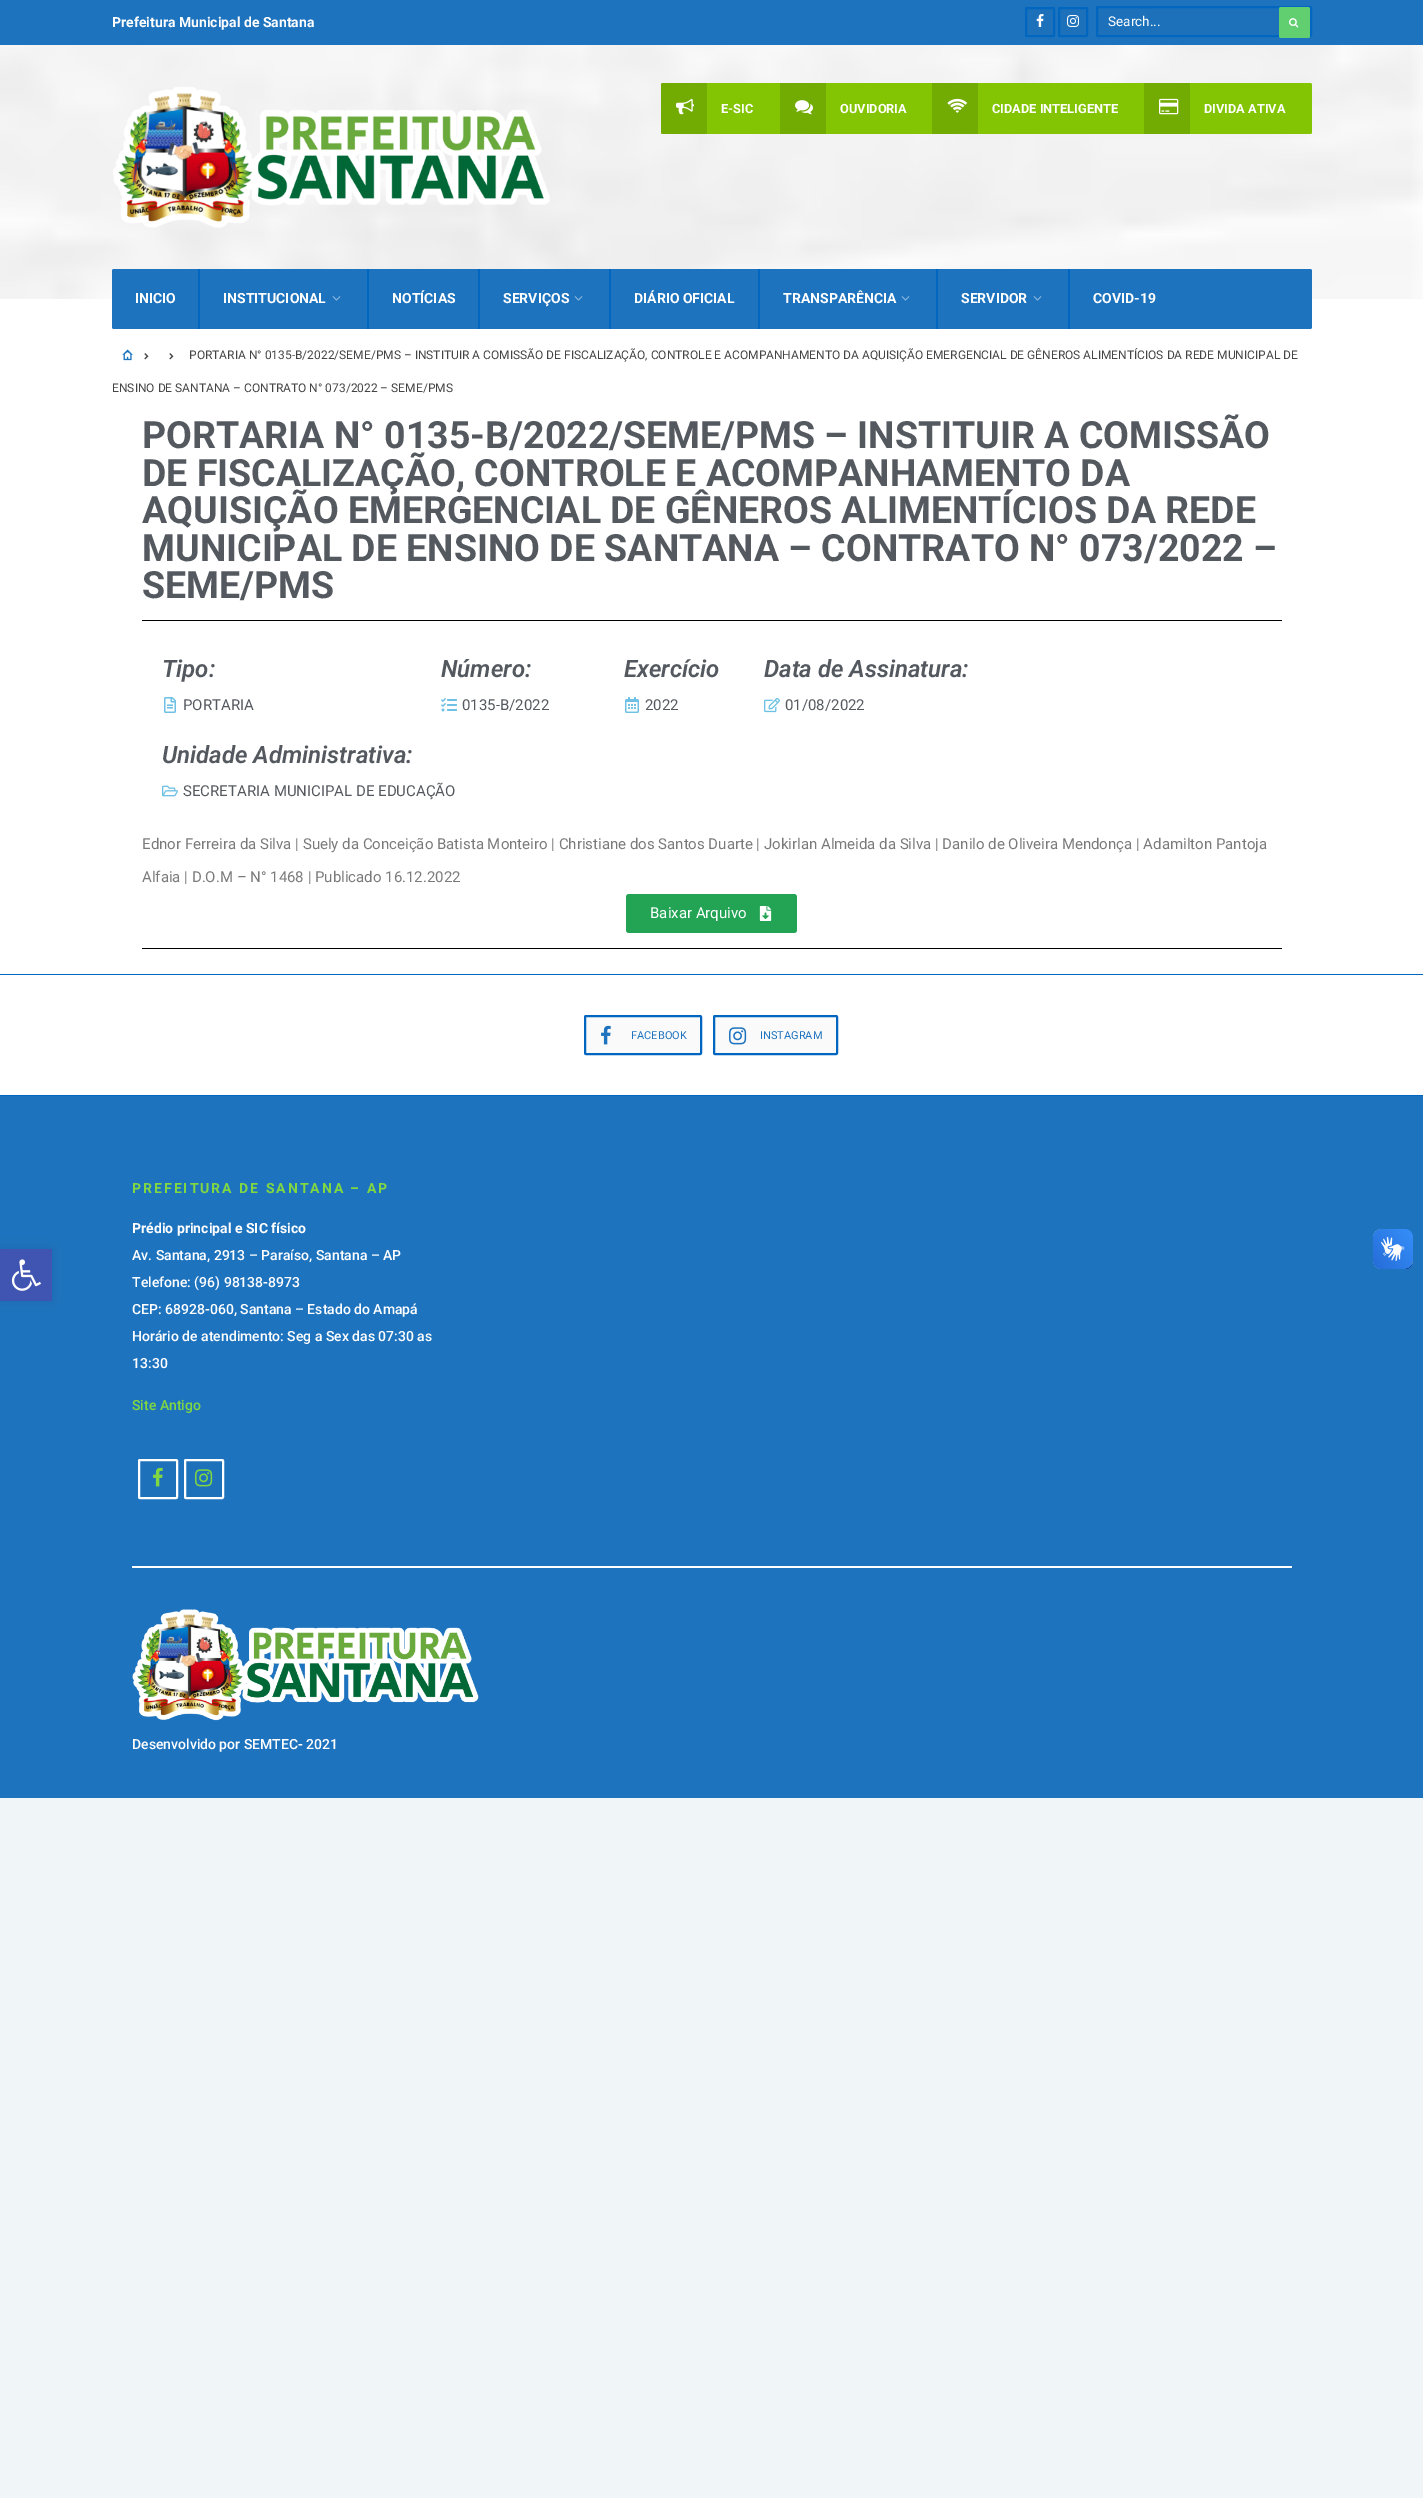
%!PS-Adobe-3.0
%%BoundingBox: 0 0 1423 2498
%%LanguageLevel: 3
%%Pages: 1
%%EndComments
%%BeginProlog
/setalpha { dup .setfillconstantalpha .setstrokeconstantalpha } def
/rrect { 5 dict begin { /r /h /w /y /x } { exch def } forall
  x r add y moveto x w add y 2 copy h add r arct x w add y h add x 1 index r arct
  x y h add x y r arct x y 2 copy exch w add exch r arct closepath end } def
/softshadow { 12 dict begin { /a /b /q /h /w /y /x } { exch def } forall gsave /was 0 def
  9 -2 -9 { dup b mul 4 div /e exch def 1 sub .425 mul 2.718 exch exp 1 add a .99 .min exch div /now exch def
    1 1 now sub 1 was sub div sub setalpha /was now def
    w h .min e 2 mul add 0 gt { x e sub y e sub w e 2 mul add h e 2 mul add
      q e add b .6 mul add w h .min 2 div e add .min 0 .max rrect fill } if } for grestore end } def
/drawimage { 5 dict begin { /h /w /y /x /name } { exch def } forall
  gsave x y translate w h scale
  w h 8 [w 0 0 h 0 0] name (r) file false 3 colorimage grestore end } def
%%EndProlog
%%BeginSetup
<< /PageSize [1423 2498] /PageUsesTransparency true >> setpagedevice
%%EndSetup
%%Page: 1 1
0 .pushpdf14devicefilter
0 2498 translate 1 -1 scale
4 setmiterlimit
0.941 0.961 0.973 setrgbcolor
0 0 1423 2498 rectfill
0.118 0.451 0.745 setrgbcolor
0 1096 1423 702 rectfill
0 setgray
0 1249 52 52 0 5 0.1 softshadow
0.251 0.329 0.698 setrgbcolor
0 1249 52 52 rectfill
(images/1.raw) 11 1259 30 32 drawimage
0.118 0.451 0.745 setrgbcolor
0 0 1423 45 rectfill
0.114 0.443 0.729 setrgbcolor
1026 8 28 28 1 rrect gsave fill grestore
0 0.4 0.749 setrgbcolor
2 setlinewidth
stroke
(images/2.raw) 1036 14 8 13 drawimage
0.114 0.443 0.729 setrgbcolor
1059 8 28 28 1 rrect gsave fill grestore
0 0.4 0.749 setrgbcolor
stroke
(images/3.raw) 1067 15 12 12 drawimage
0.114 0.443 0.729 setrgbcolor
1097 7 214 29 1 rrect gsave fill grestore
0 0.4 0.749 setrgbcolor
stroke
0.38 0.808 0.439 setrgbcolor
1279 7 31 31 2 rrect fill
(images/4.raw) 1289 18 10 10 drawimage
1 setgray
1410 45 13 254 rectfill
(images/5.raw) 0 45 1423 254 drawimage
(images/6.raw) 113 87 437 141 drawimage
0.514 0.773 0.008 setrgbcolor
661 83 651 51 2 rrect fill
0.13 setalpha
0 setgray
661 83 46 51 rectfill
1 setalpha
(images/7.raw) 676 98 18 17 drawimage
0.447 0.671 0.008 setrgbcolor
780 83 46 51 rectfill
(images/8.raw) 795 100 18 15 drawimage
932 83 46 51 rectfill
(images/9.raw) 947 98 21 15 drawimage
1144 83 46 51 rectfill
(images/10.raw) 1159 98 20 17 drawimage
1 setgray
0 299 1423 675 rectfill
0.118 0.451 0.745 setrgbcolor
112 269 1200 60 2 rrect fill
0 0.4 0.749 setrgbcolor
198 269 2 60 rectfill
(images/11.raw) 332 296 9 5 drawimage
367 269 2 60 rectfill
478 269 2 60 rectfill
(images/11.raw) 574 296 9 5 drawimage
609 269 2 60 rectfill
758 269 2 60 rectfill
(images/11.raw) 901 296 9 5 drawimage
936 269 2 60 rectfill
(images/11.raw) 1033 296 9 5 drawimage
1068 269 2 60 rectfill
(images/12.raw) 122 349 11 12 drawimage
(images/13.raw) 144 353 5 7 drawimage
(images/13.raw) 169 353 5 7 drawimage
0 setgray
142 620 1140 1 rectfill
(images/14.raw) 164 697 12 16 drawimage
(images/15.raw) 441 698 16 14 drawimage
(images/16.raw) 625 697 14 16 drawimage
(images/17.raw) 764 697 16 16 drawimage
(images/18.raw) 162 785 16 12 drawimage
0.137 0.643 0.333 setrgbcolor
626 894 171 39 3 rrect fill
(images/19.raw) 759 906 13 15 drawimage
0 setgray
142 948 1140 1 rectfill
1 setgray
0 975 1423 120 rectfill
0 0.4 0.749 setrgbcolor
0 974 1423 1 rectfill
0 1095 1423 1 rectfill
0.98 setgray
585 1016 116 38 1 rrect gsave fill grestore
0 0.4 0.749 setrgbcolor
stroke
(images/20.raw) 601 1025 10 20 drawimage
0.98 setgray
714 1016 123 38 1 rrect gsave fill grestore
0 0.4 0.749 setrgbcolor
stroke
(images/21.raw) 729 1027 18 18 drawimage
0.114 0.443 0.729 setrgbcolor
139 1460 38 38 1 rrect gsave fill grestore
1 setgray
stroke
(images/22.raw) 153 1467 10 20 drawimage
0.114 0.443 0.729 setrgbcolor
185 1460 38 38 1 rrect gsave fill grestore
1 setgray
stroke
(images/23.raw) 195 1469 18 18 drawimage
132 1566 1160 2 rectfill
(images/24.raw) 132 1609 347 112 drawimage
(images/25.raw) 1373 1229 40 40 drawimage
(images/26.raw) 1373 1229 40 40 drawimage
/Roboto-Bold [14 0 0 -14 0 0] selectfont
112 27 moveto (Prefeitura Municipal de Santana) show
/Roboto-Regular [13.5 0 0 -13.5 0 0] selectfont
1108 26 moveto (Search...) show
/Roboto-Bold [12.75 0 0 -12.75 0 0] selectfont
721 113 moveto (E-SIC) show
840 113 moveto (OUVIDORIA) show
992 113 moveto (CIDADE INTELIGENTE) show
1204 113 moveto (DIVIDA ATIVA) show
/Roboto-Bold [14 0 0 -14 0 0] selectfont
135 303 moveto (INICIO) show
223 303 moveto (INSTITUCIONAL) show
392 303 moveto (NOTÍCIAS) show
503 303 moveto (SERVIÇOS) show
634 303 moveto (DIÁRIO OFICIAL) show
783 303 moveto (TRANSPARÊNCIA) show
961 303 moveto (SERVIDOR) show
1093 303 moveto (COVID-19) show
/Roboto-Regular [12 0 0 -12 0 0] selectfont
0.267 setgray
189 359 moveto (PORTARIA N° 0135-B/2022/SEME/PMS – INSTITUIR A COMISSÃO DE FISCALIZAÇÃO, CONTROLE E ACOMPANHAMENTO DA AQUISIÇÃO EMERGENCIAL DE GÊNEROS ALIMENTÍCIOS DA REDE MUNICIPAL DE) show
112 392 moveto (ENSINO DE SANTANA – CONTRATO N° 073/2022 – SEME/PMS) show
/Roboto-Bold [37.5 0 0 -37.5 0 0] selectfont
0.329 0.349 0.373 setrgbcolor
142 448 moveto (PORTARIA N° 0135-B/2022/SEME/PMS – INSTITUIR A COMISSÃO) show
142 486 moveto (DE FISCALIZAÇÃO, CONTROLE E ACOMPANHAMENTO DA) show
142 523 moveto (AQUISIÇÃO EMERGENCIAL DE GÊNEROS ALIMENTÍCIOS DA REDE) show
142 561 moveto (MUNICIPAL DE ENSINO DE SANTANA – CONTRATO N° 073/2022 –) show
142 598 moveto (SEME/PMS) show
/Roboto-SemiBoldItalic [24 0 0 -24 0 0] selectfont
162 677 moveto (Tipo:) show
/Roboto-Regular [15 0 0 -15 0 0] selectfont
183 710 moveto (PORTARIA) show
/Roboto-SemiBoldItalic [24 0 0 -24 0 0] selectfont
441 677 moveto (Número:) show
/Roboto-Regular [15 0 0 -15 0 0] selectfont
462 710 moveto (0135-B/2022) show
/Roboto-SemiBoldItalic [24 0 0 -24 0 0] selectfont
624 677 moveto (Exercício) show
/Roboto-Regular [15 0 0 -15 0 0] selectfont
645 710 moveto (2022) show
/Roboto-SemiBoldItalic [24 0 0 -24 0 0] selectfont
764 677 moveto (Data de Assinatura:) show
/Roboto-Regular [15 0 0 -15 0 0] selectfont
785 710 moveto (01/08/2022) show
/Roboto-SemiBoldItalic [24 0 0 -24 0 0] selectfont
162 763 moveto (Unidade Administrativa:) show
/Roboto-Regular [15 0 0 -15 0 0] selectfont
183 796 moveto (SECRETARIA MUNICIPAL DE EDUCAÇÃO) show
0.478 setgray
142 849 moveto (Ednor Ferreira da Silva | Suely da Conceição Batista Monteiro | Christiane dos Santos Duarte | Jokirlan Almeida da Silva | Danilo de Oliveira Mendonça | Adamilton Pantoja) show
142 882 moveto (Alfaia | D.O.M – N° 1468 | Publicado 16.12.2022) show
1 setgray
650 918 moveto (Baixar Arquivo) show
/Roboto-Regular [11 0 0 -11 0 0] selectfont
0.118 0.451 0.745 setrgbcolor
631 1039 moveto (FACEBOOK) show
760 1039 moveto (INSTAGRAM) show
/Roboto-Bold [14 0 0 -14 0 0] selectfont
0.506 0.843 0.259 setrgbcolor
132 1193 moveto 2 0 (PREFEITURA DE SANTANA – AP) ashow
1 setgray
132 1233 moveto (Prédio principal e SIC físico) show
/Roboto-Medium [14 0 0 -14 0 0] selectfont
132 1260 moveto (Av. Santana, 2913 – Paraíso, Santana – AP) show
132 1287 moveto (Telefone: \(96\) 98138-8973) show
132 1314 moveto (CEP: 68928-060, Santana – Estado do Amapá) show
132 1341 moveto (Horário de atendimento: Seg a Sex das 07:30 as) show
132 1368 moveto (13:30) show
0.506 0.843 0.259 setrgbcolor
132 1410 moveto (Site Antigo) show
1 setgray
132 1749 moveto (Desenvolvido por SEMTEC- 2021) show
.poppdf14devicefilter showpage
%%EOF
